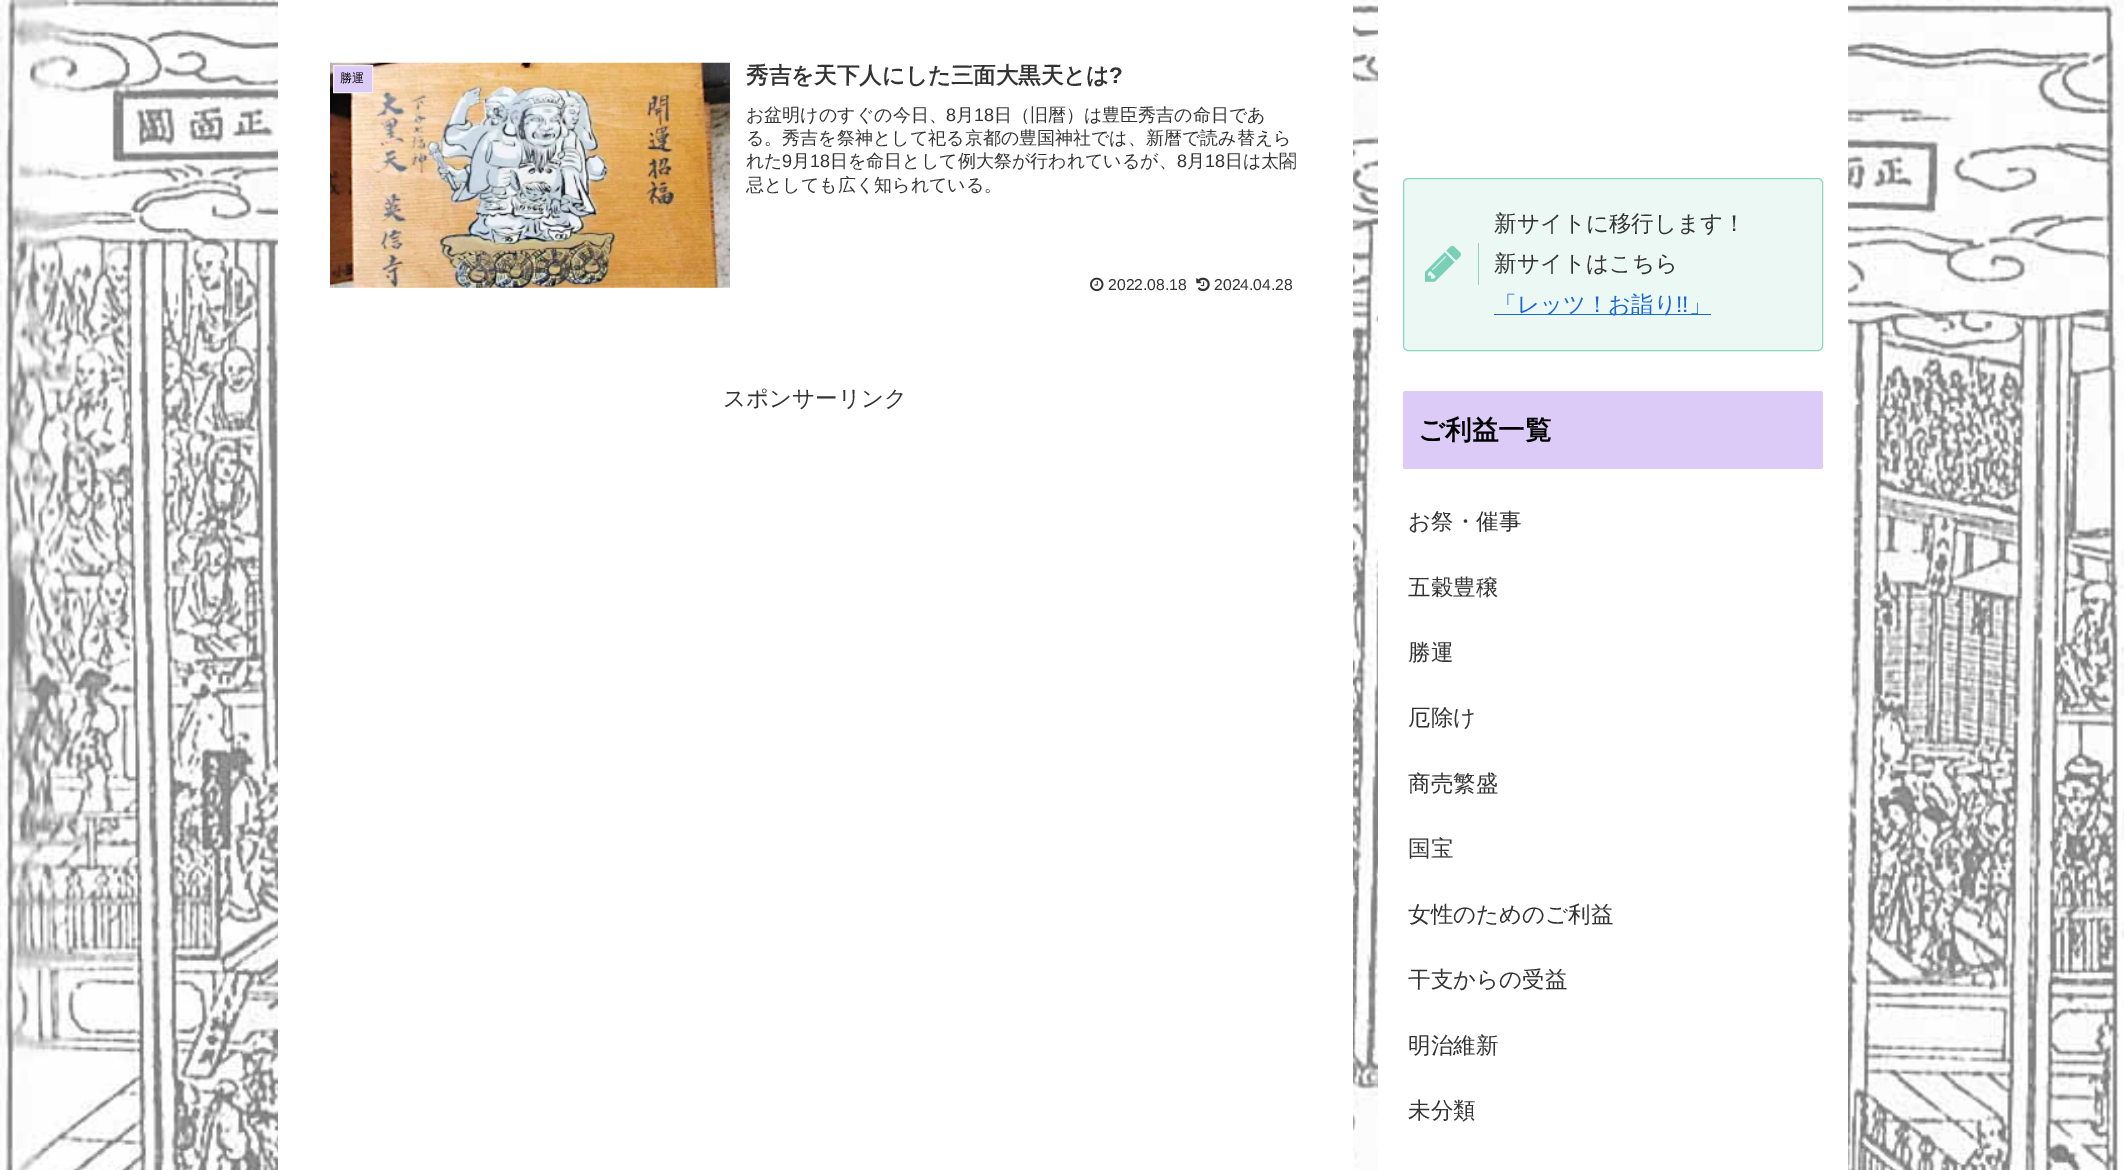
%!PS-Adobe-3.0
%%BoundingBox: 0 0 2124 1170
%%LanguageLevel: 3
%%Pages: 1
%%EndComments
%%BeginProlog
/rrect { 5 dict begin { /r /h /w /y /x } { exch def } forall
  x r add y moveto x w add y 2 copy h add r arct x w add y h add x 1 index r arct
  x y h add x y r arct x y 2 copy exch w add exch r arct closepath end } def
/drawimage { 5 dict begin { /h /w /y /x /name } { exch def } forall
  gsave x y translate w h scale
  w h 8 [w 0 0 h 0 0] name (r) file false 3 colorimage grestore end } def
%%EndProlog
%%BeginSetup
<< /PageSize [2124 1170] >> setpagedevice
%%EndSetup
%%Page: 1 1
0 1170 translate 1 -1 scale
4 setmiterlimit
1 setgray
0 0 2124 1170 rectfill
(images/1.raw) 0 0 2124 1170 drawimage
278 0 1075 1170 rectfill
(images/2.raw) 330 62 400 226 drawimage
0.863 0.792 0.969 setrgbcolor
newpath 333.5 65.5 moveto 372.5 65.5 lineto 372.5 92.5 lineto 333.5 92.5 lineto closepath gsave fill grestore
0.933 setgray
stroke
(images/3.raw) 1090 277 14 15 drawimage
(images/4.raw) 1196 277 14 15 drawimage
1 setgray
1378 0 470 1170 rectfill
0.922 0.973 0.957 setrgbcolor
1403.5 178.5 419 172 4.5 rrect gsave fill grestore
0.553 0.843 0.757 setrgbcolor
stroke
1478 243 1 42 rectfill
(images/5.raw) 1425 245 36 37 drawimage
0.098 0.404 0.824 setrgbcolor
1494 314 217 1 rectfill
0.863 0.792 0.969 setrgbcolor
1403 391 420 78 2.5 rrect fill
/WenQuanYiZenHei-Medium [12 0 0 -12 0 0] selectfont
0 setgray
340 82 moveto (勝運) show
/WenQuanYiZenHei-Bold [22.5 0 0 -22.5 0 0] selectfont
0.2 setgray
746 83 moveto (秀吉を天下人にした三面大黒天とは) show
/LiberationSans-Bold [22.5 0 0 -22.5 0 0] selectfont
1109 83 moveto (?) show
/WenQuanYiZenHei-Medium [18 0 0 -18 0 0] selectfont
746 121 moveto (お盆明けのすぐの今日、) show
/LiberationSans-Regular [18 0 0 -18 0 0] selectfont
946 121 moveto (8) show
/WenQuanYiZenHei-Medium [18 0 0 -18 0 0] selectfont
956 121 moveto (月) show
/LiberationSans-Regular [18 0 0 -18 0 0] selectfont
974 121 moveto (18) show
/WenQuanYiZenHei-Medium [18 0 0 -18 0 0] selectfont
994 121 moveto (日（旧暦）は豊臣秀吉の命日であ) show
746 144 moveto (る。秀吉を祭神として祀る京都の豊国神社では、新暦で読み替えら) show
746 167 moveto (れた) show
/LiberationSans-Regular [18 0 0 -18 0 0] selectfont
782 167 moveto (9) show
/WenQuanYiZenHei-Medium [18 0 0 -18 0 0] selectfont
792 167 moveto (月) show
/LiberationSans-Regular [18 0 0 -18 0 0] selectfont
810 167 moveto (18) show
/WenQuanYiZenHei-Medium [18 0 0 -18 0 0] selectfont
830 167 moveto (日を命日として例大祭が行われているが、) show
/LiberationSans-Regular [18 0 0 -18 0 0] selectfont
1177 167 moveto (8) show
/WenQuanYiZenHei-Medium [18 0 0 -18 0 0] selectfont
1187 167 moveto (月) show
/LiberationSans-Regular [18 0 0 -18 0 0] selectfont
1205 167 moveto (18) show
/WenQuanYiZenHei-Medium [18 0 0 -18 0 0] selectfont
1225 167 moveto (日は太閤) show
746 191 moveto (忌としても広く知られている。) show
/LiberationSans-Regular [15.75 0 0 -15.75 0 0] selectfont
1108 290 moveto (2022.08.18) show
1214 290 moveto (2024.04.28) show
/WenQuanYiZenHei-Medium [22.5 0 0 -22.5 0 0] selectfont
723 406 moveto (スポンサーリンク) show
1494 231 moveto (新サイトに移行します！) show
1494 271 moveto (新サイトはこちら) show
0.098 0.404 0.824 setrgbcolor
1494 312 moveto (「レッツ！お詣り) show
/LiberationSans-Regular [22.5 0 0 -22.5 0 0] selectfont
1676 312 moveto (!!) show
/WenQuanYiZenHei-Medium [22.5 0 0 -22.5 0 0] selectfont
1689 312 moveto (」) show
/WenQuanYiZenHei-Bold [26.5 0 0 -26.5 0 0] selectfont
0 setgray
1418 439 moveto (ご利益一覧) show
/WenQuanYiZenHei-Medium [22.5 0 0 -22.5 0 0] selectfont
0.2 setgray
1408 529 moveto (お祭・催事) show
1408 595 moveto (五穀豊穣) show
1408 660 moveto (勝運) show
1408 725 moveto (厄除け) show
1408 791 moveto (商売繁盛) show
1408 856 moveto (国宝) show
1408 922 moveto (女性のためのご利益) show
1408 987 moveto (干支からの受益) show
1408 1053 moveto (明治維新) show
1408 1118 moveto (未分類) show
showpage
%%EOF
